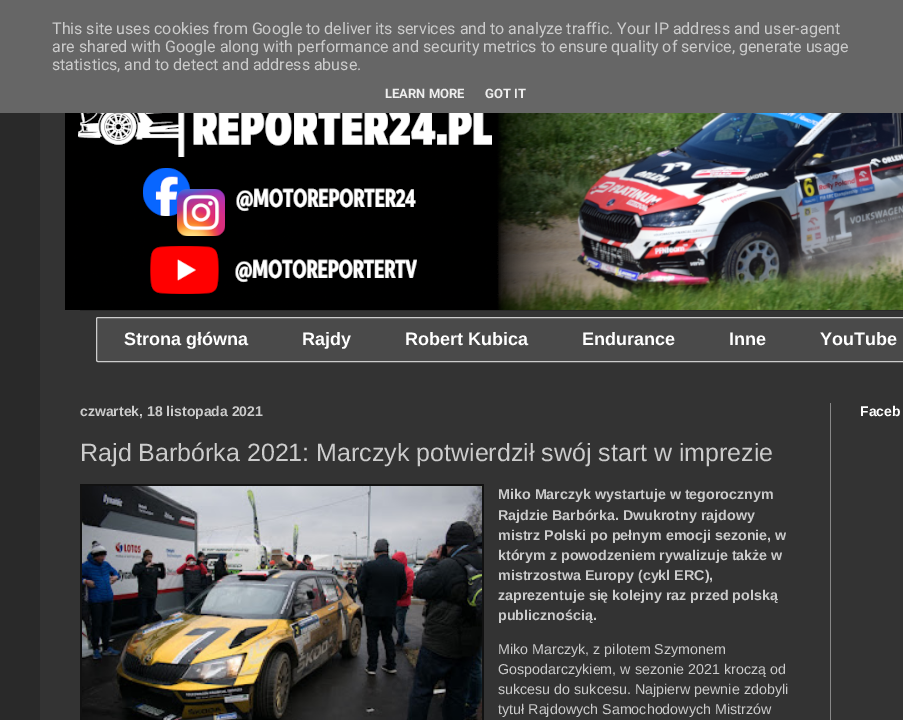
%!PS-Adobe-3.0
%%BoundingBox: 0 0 903 720
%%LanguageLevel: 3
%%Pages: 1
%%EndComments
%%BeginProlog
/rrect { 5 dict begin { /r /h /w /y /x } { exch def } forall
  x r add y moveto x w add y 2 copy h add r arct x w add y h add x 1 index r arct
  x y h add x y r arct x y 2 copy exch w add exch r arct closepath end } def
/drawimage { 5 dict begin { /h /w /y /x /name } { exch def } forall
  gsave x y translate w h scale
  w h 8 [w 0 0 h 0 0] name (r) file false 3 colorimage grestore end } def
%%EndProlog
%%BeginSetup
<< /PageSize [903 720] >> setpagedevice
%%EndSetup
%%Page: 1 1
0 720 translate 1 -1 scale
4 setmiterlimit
0.161 setgray
0 0 903 720 rectfill
0.4 setgray
0 0 903 113 rectfill
0.2 setgray
40 113 863 607 rectfill
(images/1.raw) 65 113 838 197 drawimage
0.161 setgray
80 310 823 1 rectfill
0.29 setgray
96.5 317.5 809 44 1.5 rrect gsave fill grestore
0.8 setgray
stroke
0.533 setgray
830 403 1 317 rectfill
0.067 setgray
80 484 404 236 rectfill
(images/2.raw) 82 486 400 234 drawimage
/Roboto-Regular [16 0 0 -16 0 0] selectfont
0.8 setgray
52 34 moveto (This site uses cookies from Google to deliver its services and to analyze traffic. Your IP address and user-agent) show
52 52 moveto (are shared with Google along with performance and security metrics to ensure quality of service, generate usage) show
52 70 moveto (statistics, and to detect and address abuse.) show
/Roboto-Bold [13 0 0 -13 0 0] selectfont
0.933 setgray
385 98 moveto (LEARN MORE) show
485 98 moveto (GOT IT) show
/LiberationSans-Bold [18 0 0 -18 0 0] selectfont
1 setgray
124 345 moveto (Strona główna) show
302 345 moveto (Rajdy) show
405 345 moveto (Robert Kubica) show
582 345 moveto (Endurance) show
729 345 moveto (Inne) show
820 345 moveto (YouTube) show
/LiberationSans-Bold [14 0 0 -14 0 0] selectfont
0.8 setgray
80 416 moveto (czwartek, 18 listopada 2021) show
/LiberationSans-Regular [25 0 0 -25 0 0] selectfont
80 461 moveto (Rajd Barbórka 2021: Marczyk potwierdził swój start w imprezie) show
/LiberationSans-Bold [14.3 0 0 -14.3 0 0] selectfont
498 499 moveto (Miko Marczyk wystartuje w tegorocznym) show
498 520 moveto (Rajdzie Barbórka. Dwukrotny rajdowy) show
498 540 moveto (mistrz Polski po pełnym emocji sezonie, w) show
498 560 moveto (którym z powodzeniem rywalizuje także w) show
498 580 moveto (mistrzostwa Europy \(cykl ERC\),) show
498 600 moveto (zaprezentuje się kolejny raz przed polską) show
498 620 moveto (publicznością.) show
/LiberationSans-Regular [14.3 0 0 -14.3 0 0] selectfont
498 654 moveto (Miko Marczyk, z pilotem Szymonem) show
498 674 moveto (Gospodarczykiem, w sezonie 2021 kroczą od) show
498 694 moveto (sukcesu do sukcesu. Najpierw pewnie zdobyli) show
498 714 moveto (tytuł Rajdowych Samochodowych Mistrzów) show
/LiberationSans-Bold [14 0 0 -14 0 0] selectfont
1 setgray
860 416 moveto (Faceb) show
showpage
%%EOF
